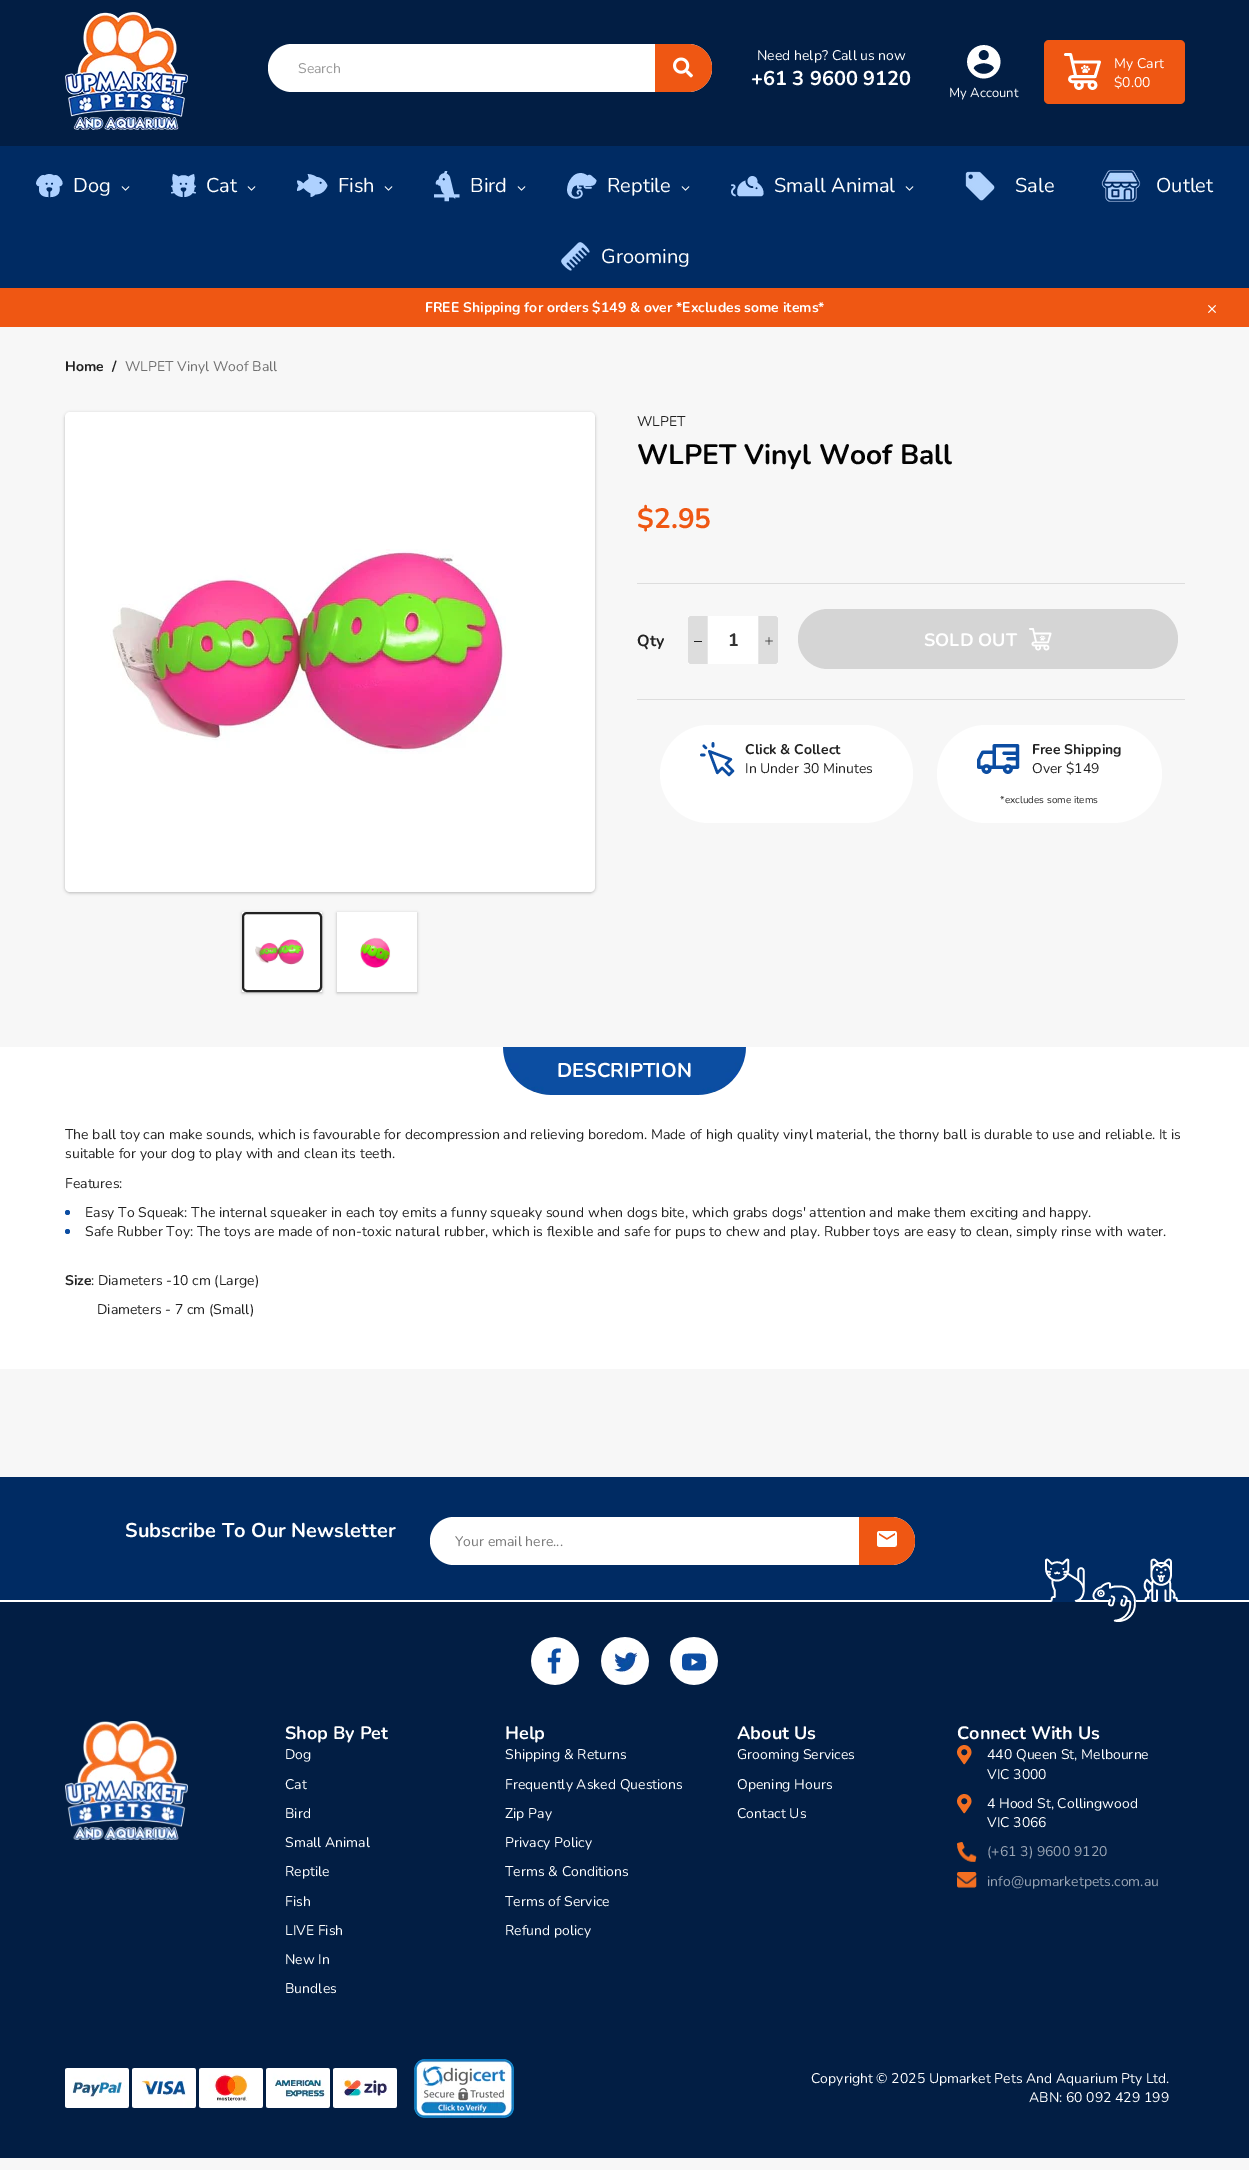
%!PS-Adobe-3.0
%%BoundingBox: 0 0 1249 2170
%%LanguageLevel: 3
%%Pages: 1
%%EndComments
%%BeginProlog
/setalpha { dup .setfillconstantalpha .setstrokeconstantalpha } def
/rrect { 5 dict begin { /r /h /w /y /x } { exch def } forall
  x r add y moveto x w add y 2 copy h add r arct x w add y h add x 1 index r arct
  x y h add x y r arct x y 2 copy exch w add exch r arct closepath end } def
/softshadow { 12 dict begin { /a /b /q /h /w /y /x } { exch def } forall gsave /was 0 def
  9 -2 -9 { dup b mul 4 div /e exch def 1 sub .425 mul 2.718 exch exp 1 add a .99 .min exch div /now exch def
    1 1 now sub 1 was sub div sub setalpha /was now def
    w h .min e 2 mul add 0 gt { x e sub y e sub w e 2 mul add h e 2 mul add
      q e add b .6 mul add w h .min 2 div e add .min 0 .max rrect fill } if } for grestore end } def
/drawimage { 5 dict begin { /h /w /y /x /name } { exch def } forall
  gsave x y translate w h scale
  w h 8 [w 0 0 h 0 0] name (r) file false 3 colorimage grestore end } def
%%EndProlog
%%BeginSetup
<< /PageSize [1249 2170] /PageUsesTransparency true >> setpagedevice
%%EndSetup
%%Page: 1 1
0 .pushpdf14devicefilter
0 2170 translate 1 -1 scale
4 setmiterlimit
0.969 setgray
0 0 1249 2170 rectfill
0.008 0.118 0.267 setrgbcolor
0 0 1249 146 rectfill
(images/1.raw) 65 12 123 118 drawimage
1 setgray
268 44 444 48 24 rrect fill
0.937 0.341 0.075 setrgbcolor
newpath 655 44 moveto 688 44 lineto 701.5 44 712 54.5 712 68 curveto 712 81.5 701.5 92 688 92 curveto 655 92 lineto closepath fill
(images/2.raw) 673 57 20 21 drawimage
1044 40 141 64 5 rrect fill
(images/3.raw) 1064 53 37 37 drawimage
(images/4.raw) 967 45 34 34 drawimage
0 0.169 0.388 setrgbcolor
0 146 1249 142 rectfill
(images/5.raw) 36 174 27 24 drawimage
(images/6.raw) 121 186 9 5 drawimage
(images/7.raw) 171 174 25 23 drawimage
(images/6.raw) 247 186 9 5 drawimage
(images/8.raw) 297 174 31 23 drawimage
(images/6.raw) 384 186 9 5 drawimage
(images/9.raw) 434 171 26 31 drawimage
(images/6.raw) 517 186 9 5 drawimage
(images/10.raw) 567 173 30 26 drawimage
(images/6.raw) 681 186 9 5 drawimage
(images/11.raw) 731 176 33 21 drawimage
(images/6.raw) 905 186 9 5 drawimage
(images/12.raw) 965 171 30 30 drawimage
(images/13.raw) 1101 170 40 32 drawimage
(images/14.raw) 561 242 29 29 drawimage
0.937 0.341 0.075 setrgbcolor
0 288 1249 39 rectfill
(images/15.raw) 1208 305 8 8 drawimage
0.196 setgray
65 413 530 480 5 1.5 0.3 softshadow
1 setgray
65 412 530 480 5 rrect fill
(images/16.raw) 110 549 396 205 drawimage
0.196 setgray
242 913 80 80 0 1.5 0.3 softshadow
1 setgray
242 912 80 80 rectfill
(images/17.raw) 255 939 49 26 drawimage
0.133 setgray
2 setlinewidth
243 913 78 78 4 rrect stroke
0.196 setgray
337 913 80 80 0 1.5 0.3 softshadow
1 setgray
337 912 80 80 rectfill
(images/18.raw) 360 937 31 31 drawimage
0.867 setgray
637 583 548 1 rectfill
637 699 548 1 rectfill
1 setgray
688 616 90 48 rectfill
0.867 setgray
newpath 691 616 moveto 707 616 lineto 707 664 lineto 691 664 lineto 689.5 664 688 662.5 688 661 curveto 688 619 lineto 688 617.5 689.5 616 691 616 curveto closepath fill
0.906 setgray
707 616 1 48 rectfill
0.133 setgray
694 641 8 1 rectfill
0.867 setgray
newpath 759 616 moveto 775 616 lineto 776.5 616 778 617.5 778 619 curveto 778 661 lineto 778 662.5 776.5 664 775 664 curveto 759 664 lineto closepath fill
0.906 setgray
758 616 1 48 rectfill
(images/19.raw) 765 637 8 8 drawimage
0.835 setgray
798 609 380 60 30 rrect fill
(images/20.raw) 1029 628 23 23 drawimage
1 setgray
660 725 253 98 49 rrect fill
(images/21.raw) 700 742 35 35 drawimage
937 725 225 98 49 rrect fill
(images/22.raw) 977 744 43 30 drawimage
0 1047 1249 322 rectfill
(images/23.raw) 503 1047 243 48 drawimage
0.047 0.302 0.635 setrgbcolor
newpath 67.5 1212.5 2.5 0 360 arc closepath fill
newpath 67.5 1231.5 2.5 0 360 arc closepath fill
0 0.169 0.388 setrgbcolor
0 1477 1249 123 rectfill
1 setgray
0 1600 1249 2 rectfill
430 1517 485 48 24 rrect fill
0.937 0.341 0.075 setrgbcolor
newpath 859 1517 moveto 891 1517 lineto 904.5 1517 915 1527.5 915 1541 curveto 915 1554.5 904.5 1565 891 1565 curveto 859 1565 lineto closepath fill
(images/24.raw) 877 1531 20 16 drawimage
0.008 0.118 0.267 setrgbcolor
0 1602 1249 556 rectfill
(images/25.raw) 1045 1558 133 64 drawimage
(images/26.raw) 531 1637 48 48 drawimage
(images/27.raw) 601 1637 48 48 drawimage
(images/28.raw) 670 1637 48 48 drawimage
(images/29.raw) 65 1721 123 119 drawimage
(images/30.raw) 957 1745 15 20 drawimage
(images/30.raw) 957 1794 15 20 drawimage
(images/31.raw) 957 1842 20 20 drawimage
(images/32.raw) 957 1872 20 16 drawimage
(images/33.raw) 65 2059 449 59 drawimage
/Nunito-ExtraLight [14 0 0 -14 0 0] selectfont
0.6 setgray
298 73 moveto (Search) show
1 setgray
757 60 moveto (Need help? Call us now) show
/Nunito-Bold [20 0 0 -20 0 0] selectfont
751 85 moveto (+61 3 9600 9120) show
/Nunito-ExtraLight [14 0 0 -14 0 0] selectfont
1114 68 moveto (My Cart) show
1114 87 moveto ($0.00) show
/Nunito-ExtraLight [13 0 0 -13 0 0] selectfont
949 97 moveto (My Account) show
/Nunito-ExtraLight [20 0 0 -20 0 0] selectfont
73 192 moveto (Dog) show
206 192 moveto (Cat) show
338 192 moveto (Fish) show
470 192 moveto (Bird) show
607 192 moveto (Reptile) show
774 192 moveto (Small Animal) show
1015 192 moveto (Sale) show
1156 192 moveto (Outlet) show
601 263 moveto (Grooming) show
/Nunito-Bold [14 0 0 -14 0 0] selectfont
425 312 moveto (FREE Shipping for orders $149 & over *Excludes some items*) show
0.133 setgray
65 371 moveto (Home) show
112 371 moveto (/) show
/Nunito-ExtraLight [14 0 0 -14 0 0] selectfont
0.439 setgray
125 371 moveto (WLPET Vinyl Woof Ball) show
0.133 setgray
637 426 moveto (WLPET) show
/Nunito-Bold [28 0 0 -28 0 0] selectfont
0.012 setgray
637 464 moveto (WLPET Vinyl Woof Ball) show
0.937 0.341 0.075 setrgbcolor
637 528 moveto ($2.95) show
/Nunito-Bold [16 0 0 -16 0 0] selectfont
0.133 setgray
637 646 moveto (Qty) show
/Nunito-Bold [18 0 0 -18 0 0] selectfont
0.2 setgray
728 646 moveto (1) show
1 setgray
924 646 moveto (SOLD OUT) show
/Nunito-Bold [14 0 0 -14 0 0] selectfont
0.133 setgray
745 754 moveto (Click & Collect) show
/Nunito-ExtraLight [14 0 0 -14 0 0] selectfont
745 773 moveto (In Under 30 Minutes) show
/Nunito-Bold [14 0 0 -14 0 0] selectfont
1032 754 moveto (Free Shipping) show
/Nunito-ExtraLight [14 0 0 -14 0 0] selectfont
1032 773 moveto (Over $149) show
/Nunito-ExtraLight [10 0 0 -10 0 0] selectfont
1000 803 moveto (*excludes some items) show
/Nunito-Bold [20 0 0 -20 0 0] selectfont
1 setgray
557 1077 moveto (DESCRIPTION) show
/Nunito-ExtraLight [14 0 0 -14 0 0] selectfont
0.133 setgray
65 1139 moveto (The ball toy can make sounds, which is favourable for decompression and relieving boredom. Made of high quality vinyl material, the thorny ball is durable to use and reliable. It is) show
65 1158 moveto (suitable for your dog to play with and clean its teeth.) show
65 1188 moveto (Features:) show
85 1217 moveto (Easy To Squeak: The internal squeaker in each toy emits a funny squeaky sound when dogs bite, which grabs dogs' attention and make them exciting and happy.) show
85 1236 moveto (Safe Rubber Toy: The toys are made of non-toxic natural rubber, which is flexible and safe for pups to chew and play. Rubber toys are easy to clean, simply rinse with water.) show
/Nunito-Bold [14 0 0 -14 0 0] selectfont
65 1285 moveto (Size) show
/Nunito-ExtraLight [14 0 0 -14 0 0] selectfont
91 1285 moveto (: Diameters -10 cm \(Large\)) show
97 1314 moveto (Diameters - 7 cm \(Small\)) show
/Nunito-Bold [20 0 0 -20 0 0] selectfont
1 setgray
125 1537 moveto (Subscribe To Our Newsletter) show
/Nunito-ExtraLight [14 0 0 -14 0 0] selectfont
0.478 setgray
455 1546 moveto (Your email here...) show
/Nunito-Bold [18 0 0 -18 0 0] selectfont
1 setgray
285 1739 moveto (Shop By Pet) show
/Nunito-ExtraLight [14 0 0 -14 0 0] selectfont
285 1759 moveto (Dog) show
285 1789 moveto (Cat) show
285 1818 moveto (Bird) show
285 1847 moveto (Small Animal) show
285 1876 moveto (Reptile) show
285 1906 moveto (Fish) show
285 1935 moveto (LIVE Fish) show
285 1964 moveto (New In) show
285 1993 moveto (Bundles) show
/Nunito-Bold [18 0 0 -18 0 0] selectfont
505 1739 moveto (Help) show
/Nunito-ExtraLight [14 0 0 -14 0 0] selectfont
505 1759 moveto (Shipping & Returns) show
505 1789 moveto (Frequently Asked Questions) show
505 1818 moveto (Zip Pay) show
505 1847 moveto (Privacy Policy) show
505 1876 moveto (Terms & Conditions) show
505 1906 moveto (Terms of Service) show
505 1935 moveto (Refund policy) show
/Nunito-Bold [18 0 0 -18 0 0] selectfont
737 1739 moveto (About Us) show
/Nunito-ExtraLight [14 0 0 -14 0 0] selectfont
737 1759 moveto (Grooming Services) show
737 1789 moveto (Opening Hours) show
737 1818 moveto (Contact Us) show
/Nunito-Bold [18 0 0 -18 0 0] selectfont
957 1739 moveto (Connect With Us) show
/Nunito-ExtraLight [14 0 0 -14 0 0] selectfont
987 1759 moveto (440 Queen St, Melbourne) show
987 1779 moveto (VIC 3000) show
987 1808 moveto (4 Hood St, Collingwood) show
987 1827 moveto (VIC 3066) show
0.604 0.647 0.706 setrgbcolor
987 1856 moveto (\(+61 3\) 9600 9120) show
987 1886 moveto (info@upmarketpets.com.au) show
1 setgray
811 2083 moveto (Copyright © 2025 Upmarket Pets And Aquarium Pty Ltd.) show
1029 2102 moveto (ABN: 60 092 429 199) show
.poppdf14devicefilter showpage
%%EOF
